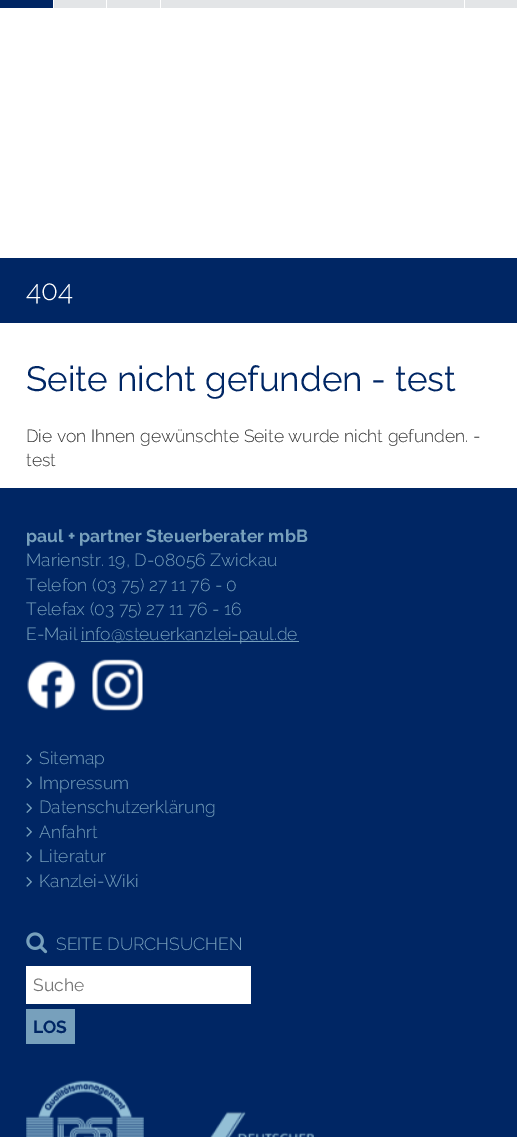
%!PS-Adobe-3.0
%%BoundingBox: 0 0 517 1137
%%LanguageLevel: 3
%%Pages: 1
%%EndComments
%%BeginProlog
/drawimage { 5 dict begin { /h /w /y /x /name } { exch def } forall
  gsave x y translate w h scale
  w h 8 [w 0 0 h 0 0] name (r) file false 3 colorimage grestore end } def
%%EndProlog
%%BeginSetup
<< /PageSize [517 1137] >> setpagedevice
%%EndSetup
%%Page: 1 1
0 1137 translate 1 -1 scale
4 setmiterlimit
0 0.149 0.392 setrgbcolor
0 0 517 1137 rectfill
0.89 0.898 0.906 setrgbcolor
54 0 463 8 rectfill
1 setgray
53 0 1 8 rectfill
106 0 1 8 rectfill
160 0 1 8 rectfill
464 0 1 8 rectfill
0 8 517 250 rectfill
0 323 517 165 rectfill
0.467 0.627 0.737 setrgbcolor
81 641 218 1 rectfill
(images/1.raw) 27 660 49 50 drawimage
(images/2.raw) 92 659 51 52 drawimage
(images/3.raw) 26 754 6 11 drawimage
(images/4.raw) 26 778 6 10 drawimage
(images/4.raw) 26 803 6 10 drawimage
(images/5.raw) 26 827 6 10 drawimage
(images/5.raw) 26 852 6 10 drawimage
(images/5.raw) 26 877 6 10 drawimage
(images/6.raw) 26 932 22 22 drawimage
1 setgray
26 966 225 38 rectfill
0.467 0.627 0.737 setrgbcolor
26 1009 49 35 rectfill
(images/7.raw) 26 1080 118 57 drawimage
(images/8.raw) 210 1111 104 26 drawimage
/Raleway-Light [28 0 0 -28 0 0] selectfont
1 setgray
26 300 moveto (404) show
/Raleway-Regular [35 0 0 -35 0 0] selectfont
0 0.149 0.392 setrgbcolor
26 391 moveto (Seite nicht gefunden - test) show
/Raleway-Light [17.5 0 0 -17.5 0 0] selectfont
0.2 setgray
26 442 moveto (Die von Ihnen gewünschte Seite wurde nicht gefunden. -) show
26 466 moveto (test) show
/Raleway-Bold [17.5 0 0 -17.5 0 0] selectfont
0.467 0.627 0.737 setrgbcolor
26 542 moveto (paul + partner Steuerberater mbB) show
/Raleway-Light [17.5 0 0 -17.5 0 0] selectfont
26 566 moveto (Marienstr. 19, D-08056 Zwickau) show
26 591 moveto (Telefon \(03 75\) 27 11 76 - 0) show
26 615 moveto (Telefax \(03 75\) 27 11 76 - 16) show
26 640 moveto (E-Mail) show
81 640 moveto (info@steuerkanzlei-paul.de) show
39 764 moveto (Sitemap) show
39 789 moveto (Impressum) show
39 813 moveto (Datenschutzerklärung) show
39 838 moveto (Anfahrt) show
39 862 moveto (Literatur) show
39 887 moveto (Kanzlei-Wiki) show
56 950 moveto (SEITE DURCHSUCHEN) show
/Raleway-Regular [17.5 0 0 -17.5 0 0] selectfont
0.459 setgray
33 991 moveto (Suche) show
/Raleway-Bold [17.5 0 0 -17.5 0 0] selectfont
0 0.149 0.392 setrgbcolor
33 1033 moveto (LOS) show
showpage
%%EOF
